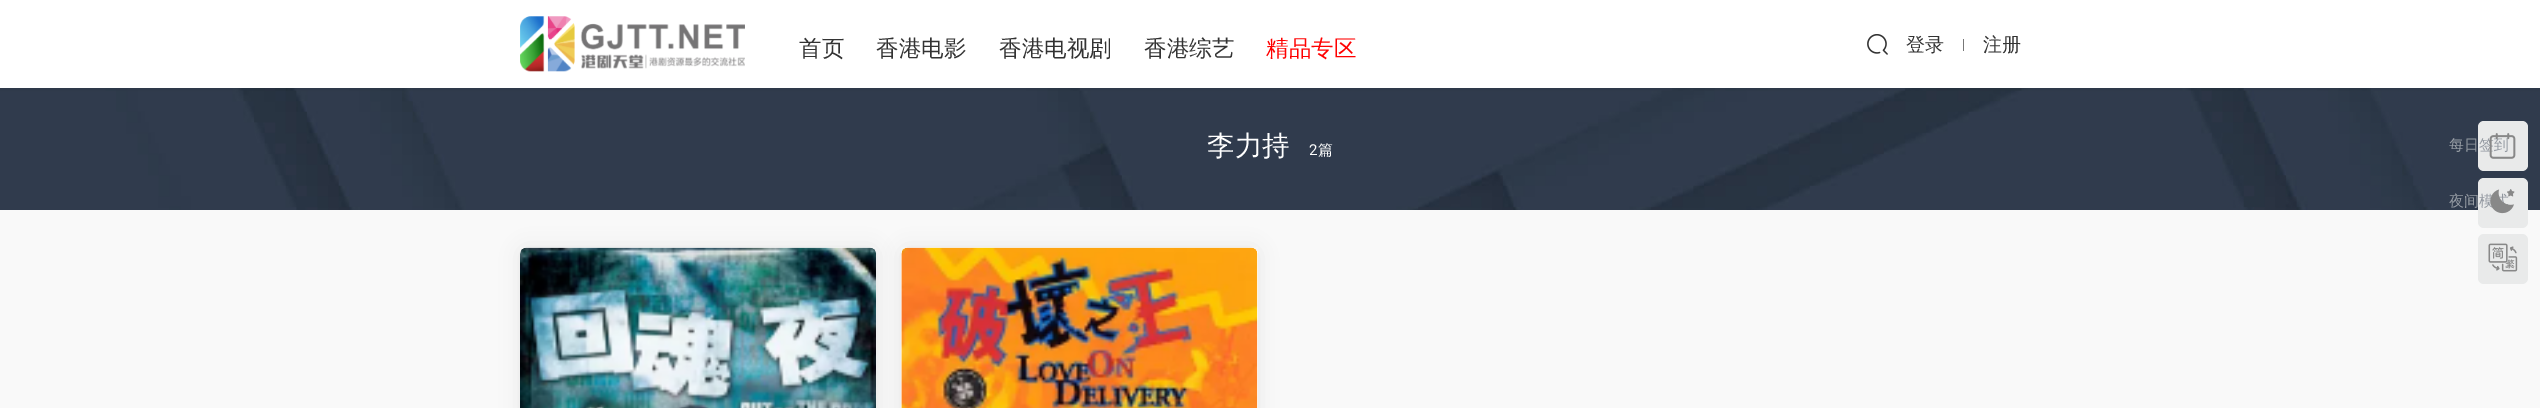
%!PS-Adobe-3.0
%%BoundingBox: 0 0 2540 408
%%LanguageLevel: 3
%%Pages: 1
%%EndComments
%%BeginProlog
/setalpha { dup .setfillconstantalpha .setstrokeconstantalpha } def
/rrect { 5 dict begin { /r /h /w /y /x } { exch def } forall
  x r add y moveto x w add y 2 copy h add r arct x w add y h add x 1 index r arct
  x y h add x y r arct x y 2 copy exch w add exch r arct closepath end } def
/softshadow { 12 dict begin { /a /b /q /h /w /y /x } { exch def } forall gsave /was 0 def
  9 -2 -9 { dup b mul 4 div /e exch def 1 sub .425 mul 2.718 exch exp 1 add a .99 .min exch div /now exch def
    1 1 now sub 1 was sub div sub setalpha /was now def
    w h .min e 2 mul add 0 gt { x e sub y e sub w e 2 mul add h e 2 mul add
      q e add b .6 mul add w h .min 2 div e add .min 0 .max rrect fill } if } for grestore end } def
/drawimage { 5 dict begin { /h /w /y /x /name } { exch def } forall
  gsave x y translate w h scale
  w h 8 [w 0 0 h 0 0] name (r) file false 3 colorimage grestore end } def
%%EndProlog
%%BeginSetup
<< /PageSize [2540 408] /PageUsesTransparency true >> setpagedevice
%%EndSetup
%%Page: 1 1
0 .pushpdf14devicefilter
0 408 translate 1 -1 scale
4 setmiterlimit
0.976 setgray
0 0 2540 408 rectfill
(images/3.raw) 0 88 2540 122 drawimage
0 setgray
0 1 2540 88 0 3 0.1 softshadow
1 setgray
0 0 2540 88 rectfill
(images/1.raw) 520 16 225 56 drawimage
(images/2.raw) 1867 34 21 21 drawimage
0.467 setgray
1963 39 1 12 rectfill
0.914 0.918 0.918 setrgbcolor
2478 121 50 50 6 rrect fill
2478 178 50 50 6 rrect fill
2478 234 50 50 6 rrect fill
(images/6.raw) 2488 243 30 29 drawimage
0 setgray
520 248 356 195 6 9.5 0.07 softshadow
1 setgray
newpath 526 248 moveto 870 248 lineto 873.5 248 876 250.5 876 254 curveto 876 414 lineto 520 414 lineto 520 254 lineto 520 250.5 522.5 248 526 248 curveto closepath fill
(images/7.raw) 520 247 356 161 drawimage
0 setgray
901 248 357 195 6 9.5 0.07 softshadow
1 setgray
newpath 907 248 moveto 1252 248 lineto 1255.5 248 1258 250.5 1258 254 curveto 1258 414 lineto 901 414 lineto 901 254 lineto 901 250.5 903.5 248 907 248 curveto closepath fill
(images/8.raw) 901 247 357 161 drawimage
/WenQuanYiZenHei-Medium [22.5 0 0 -22.5 0 0] selectfont
0.2 setgray
799 56 moveto (首页) show
876 56 moveto (香港电影) show
999 56 moveto (香港电视剧) show
1144 56 moveto (香港综艺) show
1 0 0 setrgbcolor
1266 56 moveto (精品专区) show
/WenQuanYiZenHei-Medium [19 0 0 -19 0 0] selectfont
0.2 setgray
1906 51 moveto (登录) show
1983 51 moveto (注册) show
/WenQuanYiZenHei-Medium [27.5 0 0 -27.5 0 0] selectfont
1 setgray
1207 155 moveto (李力持) show
/Roboto-Regular [15 0 0 -15 0 0] selectfont
1309 155 moveto (2) show
/WenQuanYiZenHei-Medium [15 0 0 -15 0 0] selectfont
1318 155 moveto (篇) show
0.58 0.604 0.635 setrgbcolor
2449 150 moveto (每日签到) show
(images/4.raw) 2489 133 27 26 drawimage
2449 206 moveto (夜间模) show
(images/5.raw) 2490 189 25 25 drawimage
.poppdf14devicefilter showpage
%%EOF
